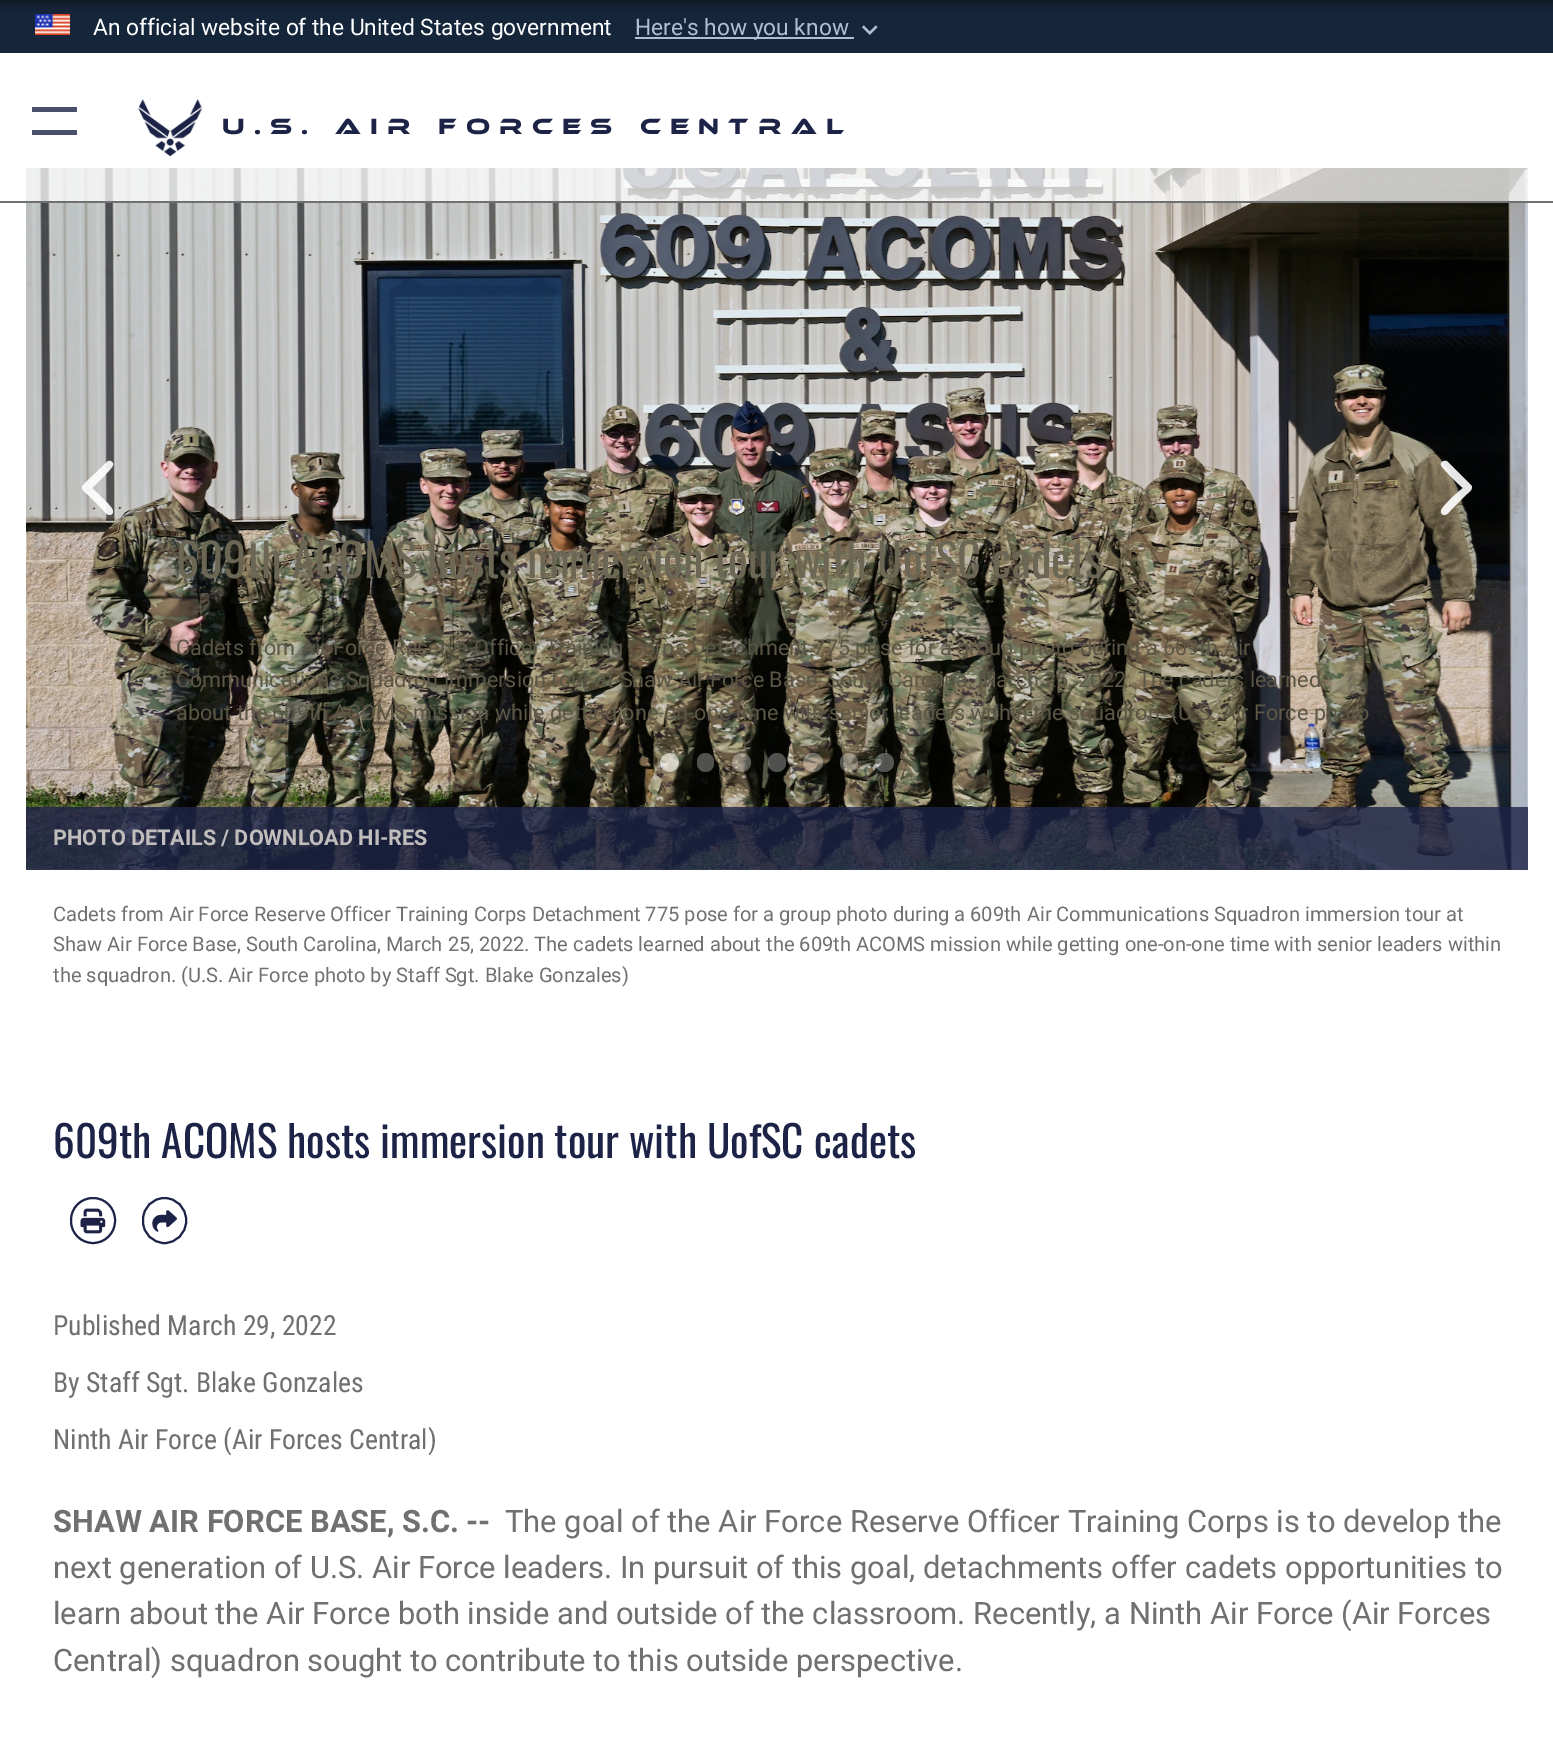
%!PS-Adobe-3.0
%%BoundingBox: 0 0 1553 1753
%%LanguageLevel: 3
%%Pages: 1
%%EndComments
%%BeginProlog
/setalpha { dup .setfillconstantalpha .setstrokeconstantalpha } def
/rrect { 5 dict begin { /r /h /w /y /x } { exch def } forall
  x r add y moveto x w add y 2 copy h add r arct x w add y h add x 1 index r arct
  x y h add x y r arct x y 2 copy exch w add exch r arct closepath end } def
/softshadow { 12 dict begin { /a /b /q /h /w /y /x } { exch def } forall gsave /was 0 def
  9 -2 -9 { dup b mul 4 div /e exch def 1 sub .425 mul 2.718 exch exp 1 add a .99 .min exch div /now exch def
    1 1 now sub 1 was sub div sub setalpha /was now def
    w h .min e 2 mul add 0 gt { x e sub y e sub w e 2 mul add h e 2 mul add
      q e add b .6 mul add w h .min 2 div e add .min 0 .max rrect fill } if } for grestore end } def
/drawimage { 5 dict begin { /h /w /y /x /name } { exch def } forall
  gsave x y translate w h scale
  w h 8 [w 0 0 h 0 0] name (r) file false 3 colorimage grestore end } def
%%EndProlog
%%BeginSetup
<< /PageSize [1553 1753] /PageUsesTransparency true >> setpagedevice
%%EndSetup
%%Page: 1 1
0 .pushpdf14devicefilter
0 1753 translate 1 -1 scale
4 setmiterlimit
1 setgray
0 0 1553 1753 rectfill
0.082 0.149 0.231 setrgbcolor
0 0 1553 53 rectfill
(images/1.raw) 35 14 35 21 drawimage
0.682 0.749 0.831 setrgbcolor
635 37 219 2 rectfill
(images/2.raw) 862 25 16 10 drawimage
0.008 0.016 0.024 setrgbcolor
0 -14 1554 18 0 4.5 0.5 softshadow
0.71 0.78 0.89 setrgbcolor
26 168 1502 702 rectfill
(images/4.raw) 26 168 1502 702 drawimage
0.75 setalpha
1 setgray
26 168 1502 33 rectfill
1 setalpha
0.439 setgray
0 201 1553 2 rectfill
0.286 0.314 0.427 setrgbcolor
32 107 45 5 1 rrect fill
32 130 45 5 1 rrect fill
(images/3.raw) 138 99 65 58 drawimage
0.9 setalpha
1 setgray
newpath 83 485 moveto 80 489 85 492 87 494 curveto 103 510 lineto 105 512 108 517 112 514 curveto 113 513 113 512 113 511 curveto 113 507 95 491 92 488 curveto 95 485 113 468 113 465 curveto 114 462 109 459 107 462 curveto closepath fill
newpath 1471 485 moveto 1474 489 1469 492 1467 494 curveto 1451 510 lineto 1449 512 1446 517 1442 514 curveto 1441 513 1441 512 1441 511 curveto 1441 507 1459 491 1463 488 curveto 1459 485 1442 468 1441 465 curveto 1440 462 1445 459 1448 462 curveto closepath fill
0.8 setalpha
0.11 0.137 0.278 setrgbcolor
26 807 1502 63 rectfill
gsave
newpath 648 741 moveto 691 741 lineto 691 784 lineto 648 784 lineto closepath 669.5 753 moveto 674.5 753 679 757.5 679 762.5 curveto 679 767.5 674.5 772 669.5 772 curveto 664.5 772 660 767.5 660 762.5 curveto 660 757.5 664.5 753 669.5 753 curveto closepath eoclip newpath
1 setalpha
0 setgray
660 753 19 19 9.5 3.5 0.5 softshadow
grestore
0.5 setalpha
1 setgray
newpath 669.5 762.5 9.5 0 360 arc closepath fill
0.3 setalpha
697 753 17 19 8.5 rrect fill
gsave
newpath 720 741 moveto 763 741 lineto 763 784 lineto 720 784 lineto closepath 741.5 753 moveto 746.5 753 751 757.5 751 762.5 curveto 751 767.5 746.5 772 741.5 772 curveto 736.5 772 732 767.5 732 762.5 curveto 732 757.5 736.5 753 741.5 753 curveto closepath eoclip newpath
1 setalpha
0 setgray
732 753 19 19 9.5 3.5 0.3 softshadow
grestore
newpath 741.5 762.5 9.5 0 360 arc closepath fill
gsave
newpath 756 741 moveto 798 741 lineto 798 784 lineto 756 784 lineto closepath 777 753 moveto 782 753 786 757 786 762 curveto 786 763 lineto 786 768 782 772 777 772 curveto 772 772 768 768 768 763 curveto 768 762 lineto 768 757 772 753 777 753 curveto closepath eoclip newpath
1 setalpha
0 setgray
768 753 18 19 9 3.5 0.3 softshadow
grestore
768 753 18 19 9 rrect fill
gsave
newpath 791 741 moveto 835 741 lineto 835 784 lineto 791 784 lineto closepath 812.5 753 moveto 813.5 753 lineto 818.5 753 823 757.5 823 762.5 curveto 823 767.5 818.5 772 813.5 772 curveto 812.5 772 lineto 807.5 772 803 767.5 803 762.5 curveto 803 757.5 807.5 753 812.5 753 curveto closepath eoclip newpath
1 setalpha
0 setgray
803 753 20 19 9.5 3.5 0.3 softshadow
grestore
803 753 20 19 9.5 rrect fill
gsave
newpath 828 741 moveto 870 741 lineto 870 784 lineto 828 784 lineto closepath 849 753 moveto 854 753 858 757 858 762 curveto 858 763 lineto 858 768 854 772 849 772 curveto 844 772 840 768 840 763 curveto 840 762 lineto 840 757 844 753 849 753 curveto closepath eoclip newpath
1 setalpha
0 setgray
840 753 18 19 9 3.5 0.3 softshadow
grestore
840 753 18 19 9 rrect fill
gsave
newpath 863 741 moveto 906 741 lineto 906 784 lineto 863 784 lineto closepath 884.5 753 moveto 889.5 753 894 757.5 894 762.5 curveto 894 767.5 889.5 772 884.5 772 curveto 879.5 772 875 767.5 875 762.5 curveto 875 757.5 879.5 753 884.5 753 curveto closepath eoclip newpath
1 setalpha
0 setgray
875 753 19 19 9.5 3.5 0.3 softshadow
grestore
newpath 884.5 762.5 9.5 0 360 arc closepath fill
1 setalpha
0.11 0.137 0.278 setrgbcolor
2 setlinewidth
71 1198 44 45 22 rrect stroke
(images/5.raw) 80 1208 26 26 drawimage
143 1198 43 45 21.5 rrect stroke
(images/6.raw) 152 1210 25 22 drawimage
/Roboto-Regular [22.75 0 0 -22.75 0 0] selectfont
1 setgray
93 35 moveto (An official website of the United States government) show
0.682 0.749 0.831 setrgbcolor
635 35 moveto (Here's how you know) show
/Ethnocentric-Regular [22.75 0 0 -22.75 0 0] selectfont
0.11 0.137 0.278 setrgbcolor
222 134 moveto 9.25 0 (U.S. Air Forces Central) ashow
/Oswald-Regular [46.4 0 0 -46.4 0 0] selectfont
0.424 0.4 0.329 setrgbcolor
176 578 moveto (609th ACOMS hosts immersion tour with UofSC cadets) show
/Roboto-Regular [21.63 0 0 -21.63 0 0] selectfont
0.357 0.337 0.271 setrgbcolor
176 655 moveto (Cadets from Air Force Reserve Officer Training Corps Detachment 775 pose for a group photo during a 609th Air) show
176 687 moveto (Communications Squadron immersion tour at Shaw Air Force Base, South Carolina, March 25, 2022. The cadets learned) show
176 720 moveto (about the 609th ACOMS mission while getting one-on-one time with senior leaders within the squadron. \(U.S. Air Force photo) show
/Roboto-Bold [21.63 0 0 -21.63 0 0] selectfont
0.757 0.741 0.741 setrgbcolor
53 845 moveto (PHOTO DETAILS) show
221 845 moveto (/ DOWNLOAD HI-RES) show
/Roboto-Regular [20.1 0 0 -20.1 0 0] selectfont
0.439 setgray
53 921 moveto (Cadets from Air Force Reserve Officer Training Corps Detachment 775 pose for a group photo during a 609th Air Communications Squadron immersion tour at) show
53 951 moveto (Shaw Air Force Base, South Carolina, March 25, 2022. The cadets learned about the 609th ACOMS mission while getting one-on-one time with senior leaders within) show
53 982 moveto (the squadron. \(U.S. Air Force photo by Staff Sgt. Blake Gonzales\)) show
/Oswald-Regular [43.25 0 0 -43.25 0 0] selectfont
0.11 0.137 0.278 setrgbcolor
53 1158 moveto (609th ACOMS hosts immersion tour with UofSC cadets) show
/RobotoCondensed-Regular [27.75 0 0 -27.75 0 0] selectfont
0.439 setgray
53 1335 moveto (Published March 29, 2022) show
53 1392 moveto (By Staff Sgt. Blake Gonzales) show
53 1449 moveto (Ninth Air Force \(Air Forces Central\)) show
/Roboto-Regular [30.9 0 0 -30.9 0 0] selectfont
505 1532 moveto (The goal of the Air Force Reserve Officer Training Corps is to develop the) show
53 1578 moveto (next generation of U.S. Air Force leaders. In pursuit of this goal, detachments offer cadets opportunities to) show
53 1624 moveto (learn about the Air Force both inside and outside of the classroom. Recently, a Ninth Air Force \(Air Forces) show
53 1671 moveto (Central\) squadron sought to contribute to this outside perspective.) show
/Roboto-Bold [30.9 0 0 -30.9 0 0] selectfont
53 1532 moveto (SHAW AIR FORCE BASE, S.C.) show
466 1532 moveto (--) show
.poppdf14devicefilter showpage
%%EOF
